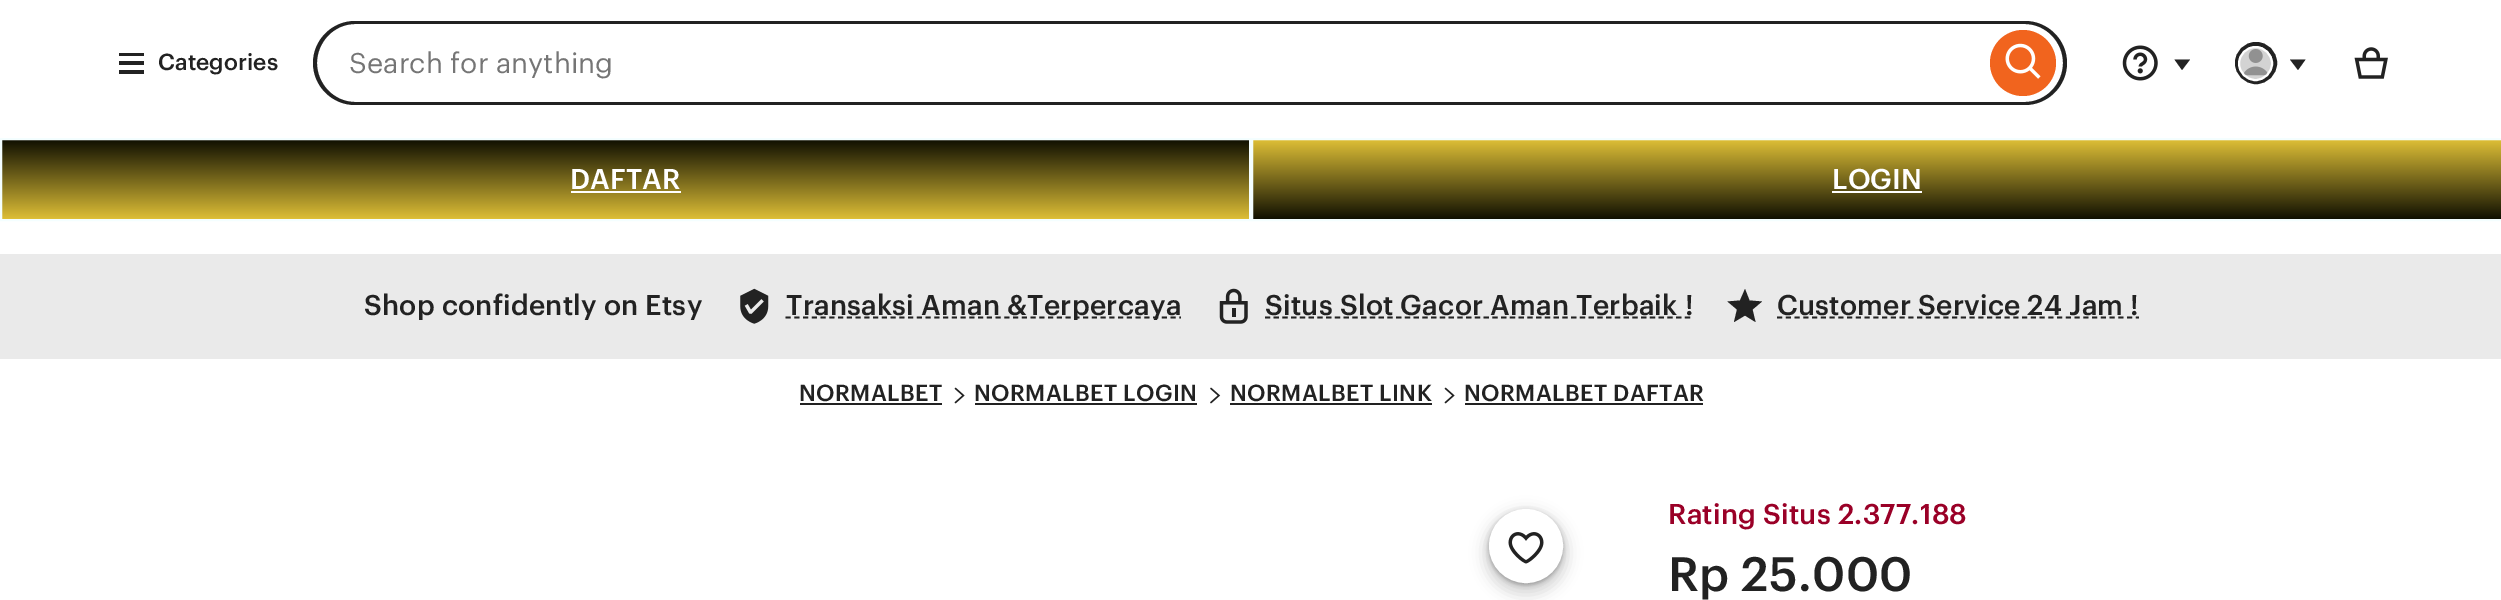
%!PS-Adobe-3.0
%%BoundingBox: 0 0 2501 600
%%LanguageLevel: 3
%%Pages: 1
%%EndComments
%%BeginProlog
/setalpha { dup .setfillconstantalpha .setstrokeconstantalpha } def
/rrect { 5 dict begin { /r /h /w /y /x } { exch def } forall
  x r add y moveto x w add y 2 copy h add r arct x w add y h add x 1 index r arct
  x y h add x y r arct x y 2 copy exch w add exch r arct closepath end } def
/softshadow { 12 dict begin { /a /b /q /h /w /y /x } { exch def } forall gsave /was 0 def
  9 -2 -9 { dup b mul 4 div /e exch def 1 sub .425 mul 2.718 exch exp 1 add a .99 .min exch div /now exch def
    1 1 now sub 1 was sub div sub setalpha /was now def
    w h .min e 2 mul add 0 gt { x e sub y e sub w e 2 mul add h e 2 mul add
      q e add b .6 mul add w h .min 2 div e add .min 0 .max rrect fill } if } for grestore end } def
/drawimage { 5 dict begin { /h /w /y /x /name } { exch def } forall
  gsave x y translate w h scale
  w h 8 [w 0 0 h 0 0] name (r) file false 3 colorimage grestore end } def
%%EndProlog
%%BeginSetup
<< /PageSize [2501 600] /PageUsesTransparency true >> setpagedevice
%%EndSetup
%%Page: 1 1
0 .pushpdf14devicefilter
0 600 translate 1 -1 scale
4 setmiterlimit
1 setgray
0 0 2501 600 rectfill
0.133 setgray
119 61 25 4 rectfill
119 70 25 4 rectfill
119 53 25 3 rectfill
newpath 355 21 moveto 1981 21 lineto 1981 105 lineto 355 105 lineto 332 105 313 86 313 63 curveto 313 40 332 21 355 21 curveto closepath 355 24 moveto 1981 24 lineto 1981 102 lineto 355 102 lineto 334 102 317 84 317 63 curveto 317 42 334 24 355 24 curveto closepath eofill
newpath 1981 21 moveto 2025 21 lineto 2048 21 2067 40 2067 63 curveto 2067 86 2048 105 2025 105 curveto 1981 105 lineto closepath 1981 24 moveto 2025 24 lineto 2046 24 2063 42 2063 63 curveto 2063 84 2046 102 2025 102 curveto 1981 102 lineto closepath eofill
0.945 0.392 0.118 setrgbcolor
newpath 2023 63 33 0 360 arc closepath fill
(images/1.raw) 2005 43 36 36 drawimage
(images/2.raw) 2122 45 36 36 drawimage
0.133 setgray
newpath 2190 59.5 moveto 2182 70 lineto 2174.5 59.5 lineto closepath fill
(images/3.raw) 2235 42 42 42 drawimage
4 setlinewidth
newpath 2256 63 19 0 360 arc closepath stroke
1 setgray
2 setlinewidth
newpath 2255.5 63.5 16.5 0 360 arc closepath stroke
0.133 setgray
newpath 2305.5 59.5 moveto 2298 70 lineto 2290 59.5 lineto closepath fill
(images/4.raw) 2354 47 34 32 drawimage
gsave newpath 2 140 moveto 1249 140 lineto 1249 219 lineto 2 219 lineto closepath clip newpath
<< /ShadingType 2 /ColorSpace /DeviceRGB /Coords [626 140 626 219] /Extend [true true] /Function << /FunctionType 2 /Domain [0 1] /C0 [0.063 0.063 0.004] /C1 [0.867 0.745 0.212] /N 1 >> >> shfill grestore
0.957 0.996 1 setrgbcolor
1 139 1249 81 rectstroke
1 setgray
571 191 110 2 rectfill
gsave newpath 1253 140 moveto 2501 140 lineto 2501 219 lineto 1253 219 lineto closepath clip newpath
<< /ShadingType 2 /ColorSpace /DeviceRGB /Coords [1877 140 1877 219] /Extend [true true] /Function << /FunctionType 2 /Domain [0 1] /C0 [0.867 0.745 0.212] /C1 [0.063 0.063 0.004] /N 1 >> >> shfill grestore
0.957 0.996 1 setrgbcolor
1252 139 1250 81 rectstroke
1 setgray
1832 191 90 2 rectfill
0.918 setgray
0 254 2501 105 rectfill
(images/5.raw) 740 288 29 36 drawimage
0.133 setgray
1.8 setlinewidth
[5.25 3.5] 0 setdash
newpath 785.5 317.5 moveto 1181 317.5 lineto stroke
(images/6.raw) 1219 288 29 36 drawimage
newpath 1265 317.5 moveto 1693 317.5 lineto stroke
newpath 1749.5 300.5 moveto 1745 289 lineto 1740 300.5 lineto 1727.5 301.5 lineto 1737 309.5 lineto 1734 322 lineto 1745 315.5 lineto 1755.5 322 lineto 1752.5 309.5 lineto 1762 301.5 lineto closepath fill
newpath 1777 317.5 moveto 2139 317.5 lineto stroke
800 403 142 2 rectfill
(images/7.raw) 954 387 11 17 drawimage
975 403 222 2 rectfill
(images/8.raw) 1210 387 11 17 drawimage
1230 403 202 2 rectfill
(images/7.raw) 1444 387 11 17 drawimage
1465 403 238 2 rectfill
0 setgray
1484 511 84 84 42 7 0.15 softshadow
1489 511 74 74 37 2.5 0.3 softshadow
1 setgray
newpath 1526 546 36 0 360 arc closepath gsave fill grestore
2 setlinewidth
[] 0 setdash
stroke
(images/9.raw) 1508 532 36 32 drawimage
/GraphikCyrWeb-Medium [22.75 0 0 -22.75 0 0] selectfont
0.133 setgray
158 70 moveto (Categories) show
/GraphikCyrWeb-Regular [28 0 0 -28 0 0] selectfont
0.459 setgray
349 73 moveto (Search for anything) show
/GraphikCyrWeb-Medium [28 0 0 -28 0 0] selectfont
1 setgray
570 189 moveto (DAFTAR) show
1832 189 moveto (LOGIN) show
0.133 setgray
364 315 moveto 0.15 0 (Shop confidently on Etsy) ashow
786 315 moveto 0.15 0 (Transaksi Aman &Terpercaya) ashow
1265 315 moveto 0.15 0 (Situs Slot Gacor Aman Terbaik !) ashow
1777 315 moveto 0.15 0 (Customer Service 24 Jam !) ashow
/GraphikCyrWeb-Medium [22.75 0 0 -22.75 0 0] selectfont
799 401 moveto 0.25 0 (NORMALBET) ashow
974 401 moveto 0.25 0 (NORMALBET LOGIN) ashow
1230 401 moveto 0.25 0 (NORMALBET LINK) ashow
1464 401 moveto 0.25 0 (NORMALBET DAFTAR) ashow
/GraphikCyrWeb-Medium [28 0 0 -28 0 0] selectfont
0.604 0 0.153 setrgbcolor
1668 524 moveto 0.15 0 (Rating Situs 2.377.188) ashow
/GraphikCyrWeb-Medium [47.25 0 0 -47.25 0 0] selectfont
0.133 setgray
1668 591 moveto 0.25 0 (Rp 25.000) ashow
.poppdf14devicefilter showpage
%%EOF
